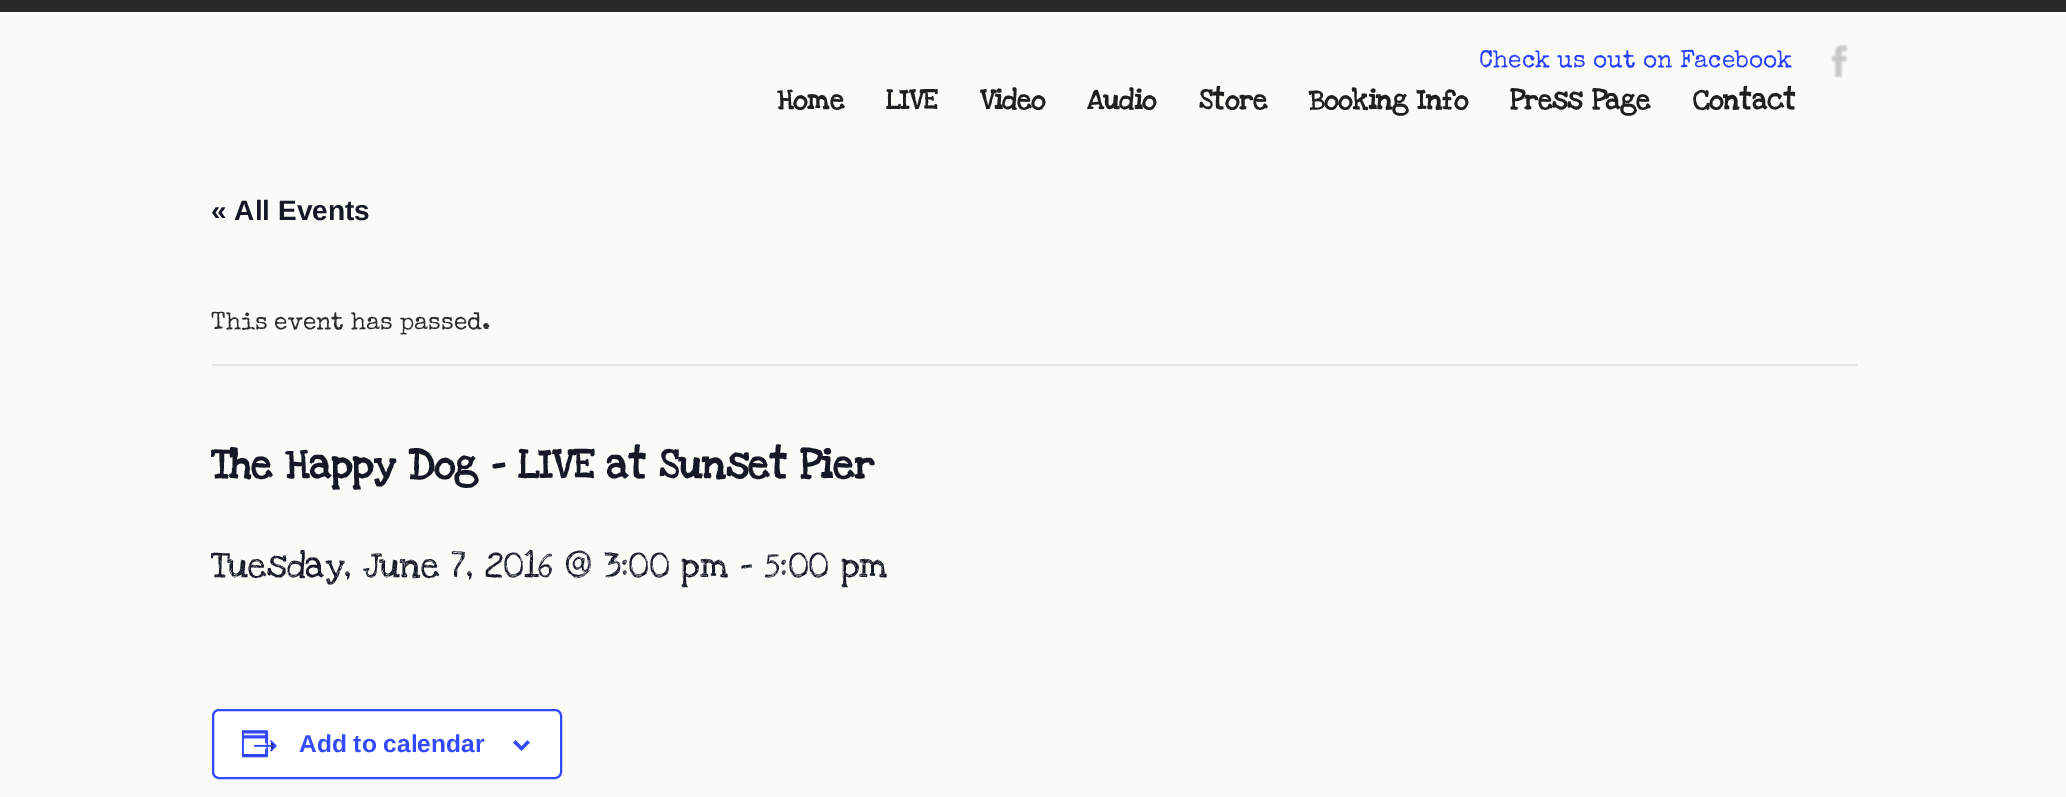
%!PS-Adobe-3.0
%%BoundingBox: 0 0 2066 797
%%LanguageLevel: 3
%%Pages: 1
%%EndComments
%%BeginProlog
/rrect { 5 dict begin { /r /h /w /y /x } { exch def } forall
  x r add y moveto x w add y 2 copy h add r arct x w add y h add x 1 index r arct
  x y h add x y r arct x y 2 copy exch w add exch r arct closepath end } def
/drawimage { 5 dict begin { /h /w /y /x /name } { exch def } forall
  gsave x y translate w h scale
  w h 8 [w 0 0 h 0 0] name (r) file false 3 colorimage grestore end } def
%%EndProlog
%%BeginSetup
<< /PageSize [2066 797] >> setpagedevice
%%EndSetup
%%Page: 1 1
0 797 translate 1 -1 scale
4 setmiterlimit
0.98 0.98 0.969 setrgbcolor
0 0 2066 797 rectfill
0.161 0.161 0.157 setrgbcolor
0 0 2066 12 rectfill
(images/1.raw) 1830 44 18 34 drawimage
0.894 setgray
212 364 1645 2 rectfill
1 setgray
213 710 348 68 6 rrect gsave fill grestore
0.2 0.29 1 setrgbcolor
2 setlinewidth
stroke
(images/2.raw) 242 730 35 28 drawimage
(images/3.raw) 513 740 17 11 drawimage
/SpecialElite-Regular [24.5 0 0 -24.5 0 0] selectfont
0.161 0.259 1 setrgbcolor
1479 67 moveto (Check us out on Facebook) show
/LoveYaLikeASister-Bold [28.5 0 0 -28.5 0 0] selectfont
0.122 setgray
777 109 moveto (Home) show
886 109 moveto (LIVE) show
980 109 moveto (Video) show
1087 109 moveto (Audio) show
1199 109 moveto (Store) show
1309 109 moveto (Booking Info) show
1510 109 moveto (Press Page) show
1693 109 moveto (Contact) show
/LiberationSans-Bold [28 0 0 -28 0 0] selectfont
0.078 0.094 0.153 setrgbcolor
211 220 moveto (« All Events) show
/SpecialElite-Regular [24.5 0 0 -24.5 0 0] selectfont
0.176 setgray
211 329 moveto (This event has passed.) show
/LoveYaLikeASister-Bold [41.6 0 0 -41.6 0 0] selectfont
0.078 0.094 0.153 setrgbcolor
211 478 moveto (The Happy Dog – LIVE at Sunset Pier) show
/LoveYaLikeASister-Regular [36.75 0 0 -36.75 0 0] selectfont
211 577 moveto (Tuesday, June 7, 2016 @ 3:00 pm - 5:00 pm) show
/LiberationSans-Bold [24.5 0 0 -24.5 0 0] selectfont
0.2 0.29 1 setrgbcolor
299 752 moveto (Add to calendar) show
showpage
%%EOF
